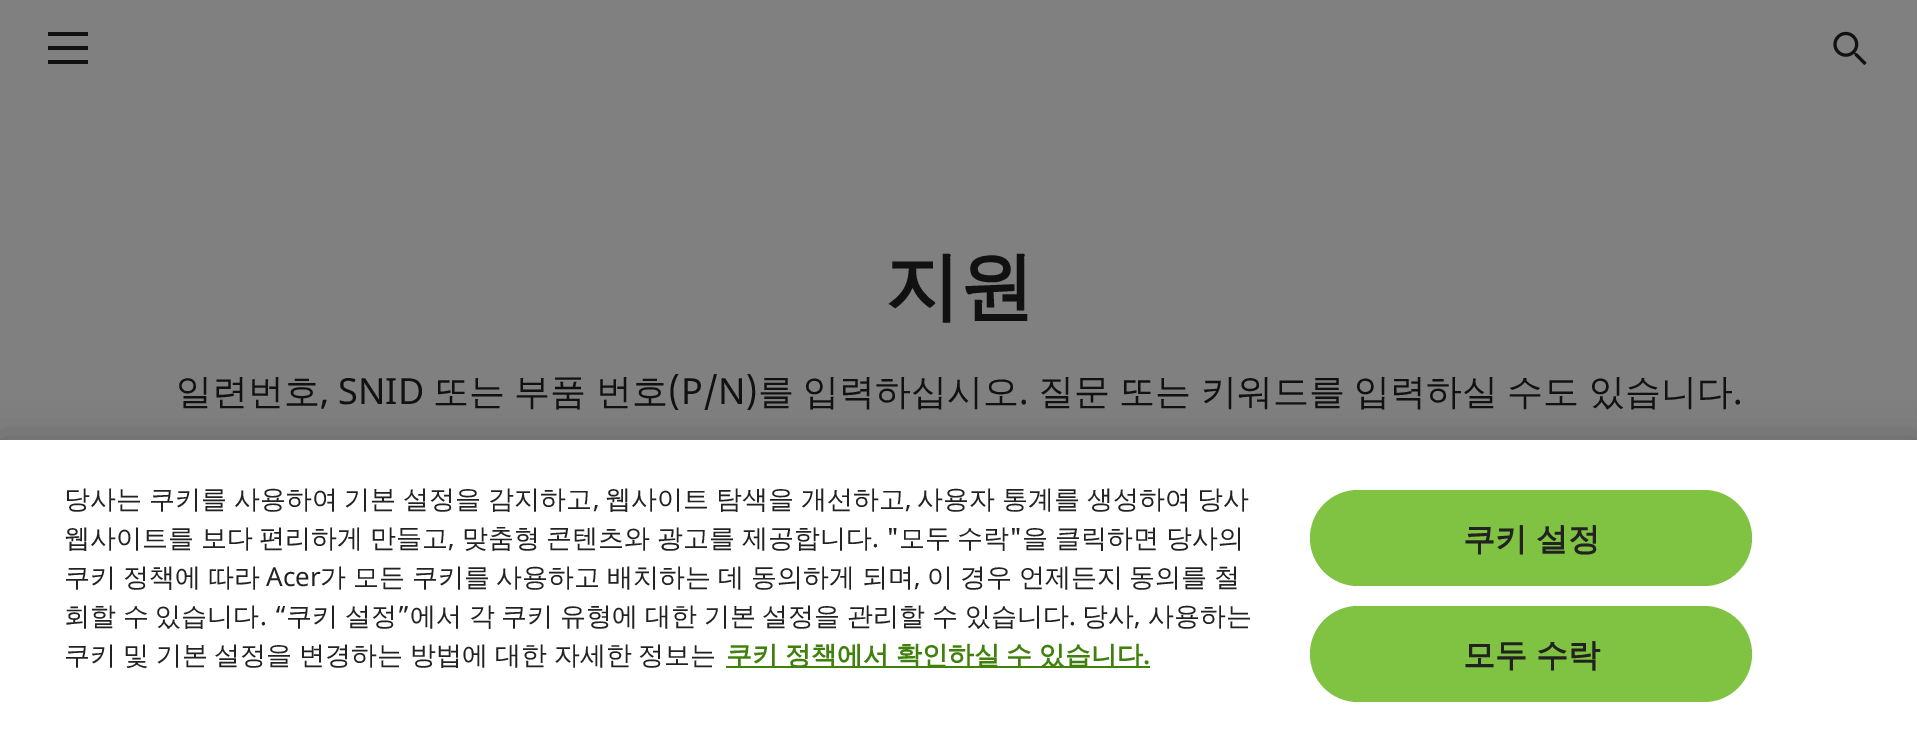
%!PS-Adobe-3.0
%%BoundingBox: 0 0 1917 741
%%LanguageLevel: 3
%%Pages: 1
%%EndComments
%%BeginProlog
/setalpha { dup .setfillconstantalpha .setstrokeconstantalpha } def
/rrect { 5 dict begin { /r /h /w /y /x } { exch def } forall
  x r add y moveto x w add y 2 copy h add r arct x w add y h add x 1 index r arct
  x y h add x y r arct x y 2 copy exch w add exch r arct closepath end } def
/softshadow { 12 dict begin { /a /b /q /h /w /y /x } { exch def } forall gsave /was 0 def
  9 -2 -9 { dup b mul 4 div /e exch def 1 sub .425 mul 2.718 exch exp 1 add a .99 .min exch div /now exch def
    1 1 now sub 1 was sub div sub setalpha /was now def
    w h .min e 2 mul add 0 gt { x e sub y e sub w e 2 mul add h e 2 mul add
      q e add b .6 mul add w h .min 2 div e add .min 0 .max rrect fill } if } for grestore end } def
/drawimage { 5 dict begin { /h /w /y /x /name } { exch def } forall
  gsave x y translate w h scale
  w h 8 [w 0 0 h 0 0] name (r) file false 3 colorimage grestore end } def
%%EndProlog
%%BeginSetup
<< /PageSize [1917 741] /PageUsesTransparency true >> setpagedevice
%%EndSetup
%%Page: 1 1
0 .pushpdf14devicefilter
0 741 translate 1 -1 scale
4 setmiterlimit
0.502 setgray
0 0 1917 741 rectfill
0.067 setgray
48 32 40 4 rectfill
48 46 40 4 rectfill
48 60 40 4 rectfill
(images/1.raw) 1833 31 34 35 drawimage
0 setgray
0 440 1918 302 0 18 0.2 softshadow
1 setgray
0 440 1917 301 rectfill
0.251 0.506 0.047 setrgbcolor
726 666 424 2 rectfill
0.502 0.765 0.263 setrgbcolor
1310 490 442 96 48 rrect fill
1310 606 442 96 48 rrect fill
/WenQuanYiZenHei-Bold [75 0 0 -75 0 0] selectfont
0.067 setgray
885 312 moveto -1 0 (지원) ashow
/WenQuanYiZenHei-Medium [36 0 0 -36 0 0] selectfont
176 404 moveto (일련번호) show
/NotoSans-Regular [36 0 0 -36 0 0] selectfont
320 404 moveto (, SNID) show
/WenQuanYiZenHei-Medium [36 0 0 -36 0 0] selectfont
433 404 moveto (또는) show
514 404 moveto (부품) show
596 404 moveto (번호) show
/NotoSans-Regular [36 0 0 -36 0 0] selectfont
668 404 moveto (\(P/N\)) show
/WenQuanYiZenHei-Medium [36 0 0 -36 0 0] selectfont
758 404 moveto (를) show
803 404 moveto (입력하십시오) show
/NotoSans-Regular [36 0 0 -36 0 0] selectfont
1019 404 moveto (.) show
/WenQuanYiZenHei-Medium [36 0 0 -36 0 0] selectfont
1038 404 moveto (질문) show
1119 404 moveto (또는) show
1201 404 moveto (키워드를) show
1354 404 moveto (입력하실) show
1507 404 moveto (수도) show
1589 404 moveto (있습니다) show
/NotoSans-Regular [36 0 0 -36 0 0] selectfont
1733 404 moveto (.) show
/WenQuanYiZenHei-Medium [26 0 0 -26 0 0] selectfont
0.133 setgray
64 508 moveto -1 0 32 (당사는 쿠키를 사용하여 기본 설정을 감지하고) widthshow
/NotoSans-Regular [26 0 0 -26 0 0] selectfont
593 508 moveto (,) show
/WenQuanYiZenHei-Medium [26 0 0 -26 0 0] selectfont
605 508 moveto -1 0 32 (웹사이트 탐색을 개선하고) widthshow
/NotoSans-Regular [26 0 0 -26 0 0] selectfont
905 508 moveto (,) show
/WenQuanYiZenHei-Medium [26 0 0 -26 0 0] selectfont
917 508 moveto -1 0 32 (사용자 통계를 생성하여 당사) widthshow
64 547 moveto (웹사이트를) show
201 547 moveto (보다) show
259 547 moveto (편리하게) show
370 547 moveto (만들고) show
/NotoSans-Regular [26 0 0 -26 0 0] selectfont
448 547 moveto (,) show
/WenQuanYiZenHei-Medium [26 0 0 -26 0 0] selectfont
462 547 moveto (맞춤형) show
546 547 moveto (콘텐츠와) show
657 547 moveto (광고를) show
742 547 moveto (제공합니다) show
/NotoSans-Regular [26 0 0 -26 0 0] selectfont
872 547 moveto (. ") show
/WenQuanYiZenHei-Medium [26 0 0 -26 0 0] selectfont
899 547 moveto (모두) show
957 547 moveto (수락) show
/NotoSans-Regular [26 0 0 -26 0 0] selectfont
1009 547 moveto (") show
/WenQuanYiZenHei-Medium [26 0 0 -26 0 0] selectfont
1022 547 moveto (을) show
1055 547 moveto (클릭하면) show
1166 547 moveto (당사의) show
64 586 moveto -1 0 32 (쿠키 정책에 따라) widthshow
/NotoSans-Regular [26 0 0 -26 0 0] selectfont
266 586 moveto (Acer) show
/WenQuanYiZenHei-Medium [26 0 0 -26 0 0] selectfont
320 586 moveto -1 0 32 (가 모든 쿠키를 사용하고 배치하는 데 동의하게 되며) widthshow
/NotoSans-Regular [26 0 0 -26 0 0] selectfont
914 586 moveto (,) show
/WenQuanYiZenHei-Medium [26 0 0 -26 0 0] selectfont
927 586 moveto -1 0 32 (이 경우 언제든지 동의를 철) widthshow
64 625 moveto (회할) show
123 625 moveto (수) show
155 625 moveto (있습니다) show
/NotoSans-Regular [26 0 0 -26 0 0] selectfont
260 625 moveto (. “) show
/WenQuanYiZenHei-Medium [26 0 0 -26 0 0] selectfont
286 625 moveto (쿠키) show
345 625 moveto (설정) show
/NotoSans-Regular [26 0 0 -26 0 0] selectfont
397 625 moveto (”) show
/WenQuanYiZenHei-Medium [26 0 0 -26 0 0] selectfont
410 625 moveto (에서) show
469 625 moveto (각) show
501 625 moveto (쿠키) show
560 625 moveto (유형에) show
645 625 moveto (대한) show
704 625 moveto (기본) show
762 625 moveto (설정을) show
847 625 moveto (관리할) show
932 625 moveto (수) show
965 625 moveto (있습니다) show
/NotoSans-Regular [26 0 0 -26 0 0] selectfont
1069 625 moveto (.) show
/WenQuanYiZenHei-Medium [26 0 0 -26 0 0] selectfont
1082 625 moveto (당사) show
/NotoSans-Regular [26 0 0 -26 0 0] selectfont
1134 625 moveto (,) show
/WenQuanYiZenHei-Medium [26 0 0 -26 0 0] selectfont
1148 625 moveto (사용하는) show
64 664 moveto -1 0 32 (쿠키 및 기본 설정을 변경하는 방법에 대한 자세한 정보는) widthshow
/WenQuanYiZenHei-Bold [26 0 0 -26 0 0] selectfont
0.251 0.506 0.047 setrgbcolor
726 664 moveto -1 0 32 (쿠키 정책에서 확인하실 수 있습니다) widthshow
/NotoSans-SemiBold [26 0 0 -26 0 0] selectfont
1143 664 moveto (.) show
/WenQuanYiZenHei-Bold [32 0 0 -32 0 0] selectfont
0.133 setgray
1463 550 moveto -1 0 32 (쿠키 설정) widthshow
1463 666 moveto -1 0 32 (모두 수락) widthshow
.poppdf14devicefilter showpage
%%EOF
